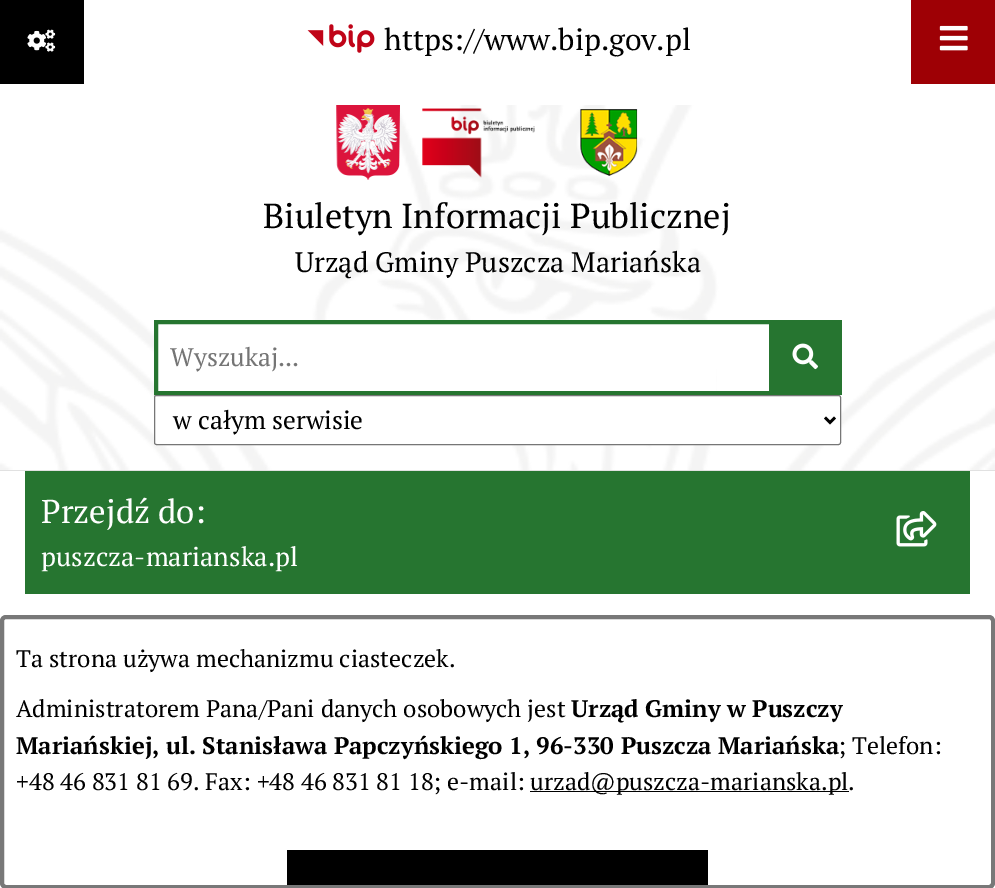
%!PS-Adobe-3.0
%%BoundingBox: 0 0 995 888
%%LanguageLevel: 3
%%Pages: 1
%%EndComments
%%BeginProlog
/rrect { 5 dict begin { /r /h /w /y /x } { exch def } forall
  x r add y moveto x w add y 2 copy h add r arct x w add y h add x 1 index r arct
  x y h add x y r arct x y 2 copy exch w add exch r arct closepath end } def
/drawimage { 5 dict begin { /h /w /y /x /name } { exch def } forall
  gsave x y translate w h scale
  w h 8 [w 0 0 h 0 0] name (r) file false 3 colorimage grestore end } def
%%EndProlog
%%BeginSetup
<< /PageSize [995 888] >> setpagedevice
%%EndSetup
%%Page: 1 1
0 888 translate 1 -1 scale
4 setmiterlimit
1 setgray
0 0 995 888 rectfill
0.882 setgray
0 470 995 1 rectfill
(images/1.raw) 0 105 995 365 drawimage
(images/2.raw) 307 24 68 29 drawimage
(images/3.raw) 336 105 64 75 drawimage
(images/4.raw) 422 108 113 70 drawimage
(images/5.raw) 580 109 58 67 drawimage
1 setgray
158 324 558 67 rectfill
0.149 0.459 0.188 setrgbcolor
4 setlinewidth
156 322 615 71 rectstroke
773 320 69 75 rectfill
(images/6.raw) 792 343 26 27 drawimage
1 setgray
154.5 395.5 686 49 2 rrect gsave fill grestore
0.463 setgray
1 setlinewidth
stroke
0 setgray
2.5 setlinewidth
newpath 825 417.5 moveto 830 422.5 lineto 835 417.5 lineto stroke
0 0 84 84 rectfill
(images/7.raw) 27 29 29 23 drawimage
0.62 0 0.02 setrgbcolor
911 0 84 84 rectfill
(images/8.raw) 939 25 29 26 drawimage
0.149 0.459 0.188 setrgbcolor
25 471 945 123 rectfill
(images/9.raw) 896 511 41 36 drawimage
0.471 setgray
4 setlinewidth
2 617 991 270 4 rrect stroke
0 setgray
530 791 319 1 rectfill
287 850 421 35 rectfill
/PTSerif-Regular [30 0 0 -30 0 0] selectfont
384 50 moveto (https://www.bip.gov.pl) show
/PTSerif-Regular [34.5 0 0 -34.5 0 0] selectfont
263 228 moveto (Biuletyn Informacji Publicznej) show
/PTSerif-Regular [28.1 0 0 -28.1 0 0] selectfont
295 272 moveto (Urząd Gminy Puszcza Mariańska) show
/PTSerif-Regular [25.5 0 0 -25.5 0 0] selectfont
0.459 setgray
170 366 moveto (Wyszukaj...) show
0 setgray
173 429 moveto (w całym serwisie) show
/PTSerif-Regular [33 0 0 -33 0 0] selectfont
1 setgray
41 523 moveto (Przejdź do:) show
/PTSerif-Regular [26.5 0 0 -26.5 0 0] selectfont
41 566 moveto (puszcza-marianska.pl) show
/PTSerif-Regular [24 0 0 -24 0 0] selectfont
0 setgray
16 667 moveto (Ta strona używa mechanizmu ciasteczek.) show
16 717 moveto (Administratorem Pana/Pani danych osobowych jest) show
/PTSerif-Bold [24 0 0 -24 0 0] selectfont
571 717 moveto (Urząd Gminy w Puszczy) show
16 754 moveto (Mariańskiej, ul. Stanisława Papczyńskiego 1, 96-330 Puszcza Mariańska) show
/PTSerif-Regular [24 0 0 -24 0 0] selectfont
838 754 moveto (; Telefon:) show
16 790 moveto (+48 46 831 81 69. Fax: +48 46 831 81 18; e-mail:) show
530 790 moveto (urzad@puszcza-marianska.pl.) show
showpage
%%EOF
